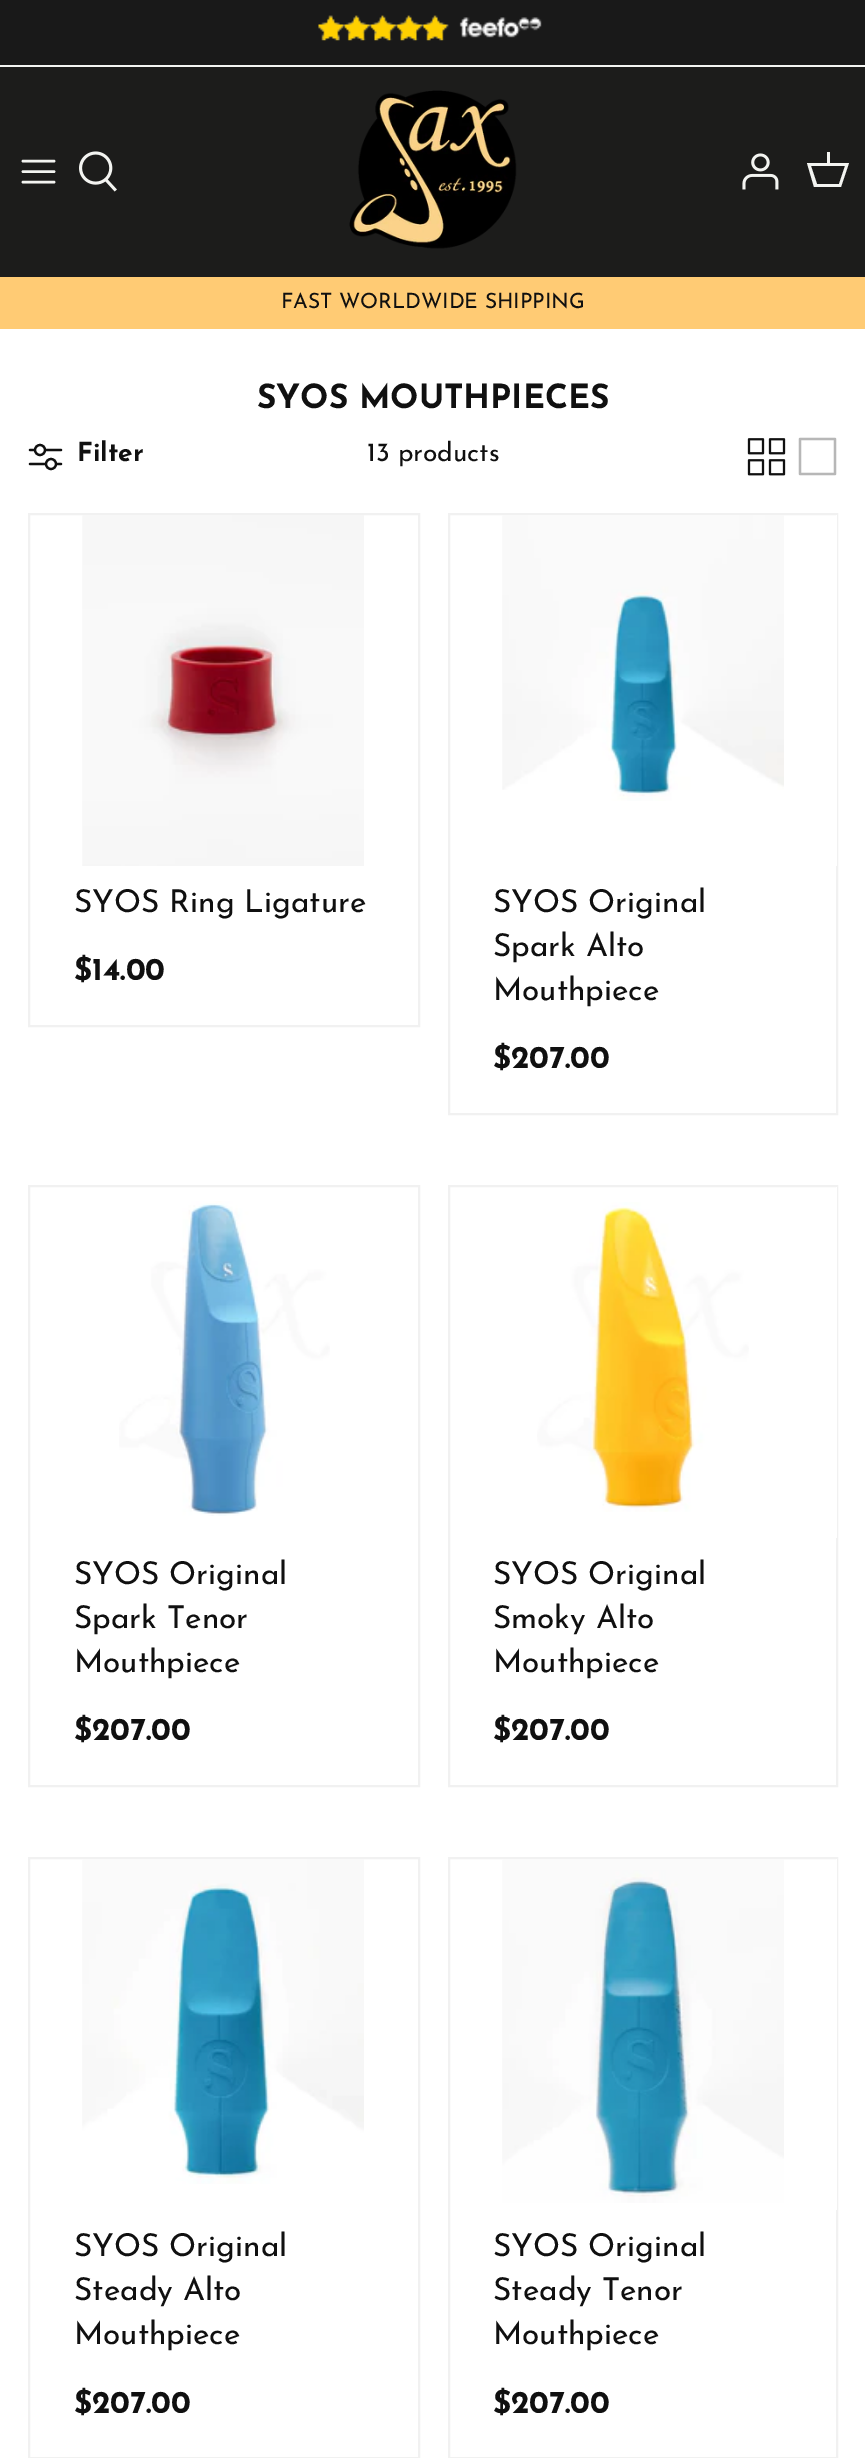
%!PS-Adobe-3.0
%%BoundingBox: 0 0 865 2458
%%LanguageLevel: 3
%%Pages: 1
%%EndComments
%%BeginProlog
/drawimage { 5 dict begin { /h /w /y /x /name } { exch def } forall
  gsave x y translate w h scale
  w h 8 [w 0 0 h 0 0] name (r) file false 3 colorimage grestore end } def
%%EndProlog
%%BeginSetup
<< /PageSize [865 2458] >> setpagedevice
%%EndSetup
%%Page: 1 1
0 2458 translate 1 -1 scale
4 setmiterlimit
1 setgray
0 0 865 2458 rectfill
0.098 setgray
0 0 865 65 rectfill
0.953 0.957 0.945 setrgbcolor
0 65 865 2 rectfill
(images/1.raw) 318 15 224 26 drawimage
0.11 0.11 0.106 setrgbcolor
0 67 865 210 rectfill
0.953 0.957 0.945 setrgbcolor
2.6 setlinewidth
1 setlinecap
1 setlinejoin
newpath 23 171.5 moveto 54 171.5 lineto 23 161 moveto 54 161 lineto 23 182 moveto 54 182 lineto stroke
(images/2.raw) 79 151 38 41 drawimage
(images/3.raw) 349 90 168 159 drawimage
(images/4.raw) 742 153 37 37 drawimage
newpath 827 163 moveto 827 152 lineto 830 152 lineto 830 163 lineto 849 163 lineto 841 187 lineto 814 187 lineto 807 163 lineto closepath 811 166 moveto 817 184 lineto 839 184 lineto 845 166 lineto closepath fill
1 0.796 0.455 setrgbcolor
0 277 865 52 rectfill
0.063 setgray
2.2 setlinewidth
newpath 30 450 moveto 61 450 lineto 30 464 moveto 61 464 lineto stroke
1 setgray
newpath 40 450 5 0 360 arc closepath gsave fill grestore
0.063 setgray
0 setlinecap
0 setlinejoin
stroke
1 setgray
newpath 51 464 5 0 360 arc closepath gsave fill grestore
0.063 setgray
stroke
(images/5.raw) 747 438 39 38 drawimage
0.718 setgray
2.3 setlinewidth
1 setlinecap
1 setlinejoin
newpath 800 439 moveto 835 439 lineto 835 474 lineto 800 474 lineto 800 439 lineto stroke
0.945 setgray
2 setlinewidth
0 setlinecap
0 setlinejoin
29 514 390 512 rectstroke
(images/6.raw) 82 515 282 351 drawimage
449 514 388 600 rectstroke
1 setgray
836 515 1 351 rectfill
(images/7.raw) 502 515 282 286 drawimage
0.945 setgray
29 1186 390 600 rectstroke
(images/8.raw) 119 1201 211 315 drawimage
449 1186 388 600 rectstroke
1 setgray
836 1187 1 351 rectfill
(images/9.raw) 537 1202 212 310 drawimage
0.945 setgray
29 1858 390 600 rectstroke
(images/10.raw) 82 1859 282 325 drawimage
449 1858 388 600 rectstroke
1 setgray
836 1859 1 351 rectfill
(images/11.raw) 502 1859 282 344 drawimage
/JosefinSans-Regular [21 0 0 -21 0 0] selectfont
0.063 setgray
281 308 moveto (FAST WORLDWIDE SHIPPING) show
/JosefinSans-Bold [33.25 0 0 -33.25 0 0] selectfont
257 408 moveto (SYOS MOUTHPIECES) show
/JosefinSans-Bold [26.25 0 0 -26.25 0 0] selectfont
77 461 moveto (Filter) show
/JosefinSans-Regular [26.25 0 0 -26.25 0 0] selectfont
367 461 moveto (13 products) show
/JosefinSans-Regular [31.5 0 0 -31.5 0 0] selectfont
74 912 moveto (SYOS Ring Ligature) show
/JosefinSans-Bold [31.5 0 0 -31.5 0 0] selectfont
74 980 moveto ($14.00) show
/JosefinSans-Regular [31.5 0 0 -31.5 0 0] selectfont
493 912 moveto (SYOS Original) show
493 956 moveto (Spark Alto) show
493 1000 moveto (Mouthpiece) show
/JosefinSans-Bold [31.5 0 0 -31.5 0 0] selectfont
493 1068 moveto ($207.00) show
/JosefinSans-Regular [31.5 0 0 -31.5 0 0] selectfont
74 1584 moveto (SYOS Original) show
74 1628 moveto (Spark Tenor) show
74 1672 moveto (Mouthpiece) show
/JosefinSans-Bold [31.5 0 0 -31.5 0 0] selectfont
74 1740 moveto ($207.00) show
/JosefinSans-Regular [31.5 0 0 -31.5 0 0] selectfont
493 1584 moveto (SYOS Original) show
493 1628 moveto (Smoky Alto) show
493 1672 moveto (Mouthpiece) show
/JosefinSans-Bold [31.5 0 0 -31.5 0 0] selectfont
493 1740 moveto ($207.00) show
/JosefinSans-Regular [31.5 0 0 -31.5 0 0] selectfont
74 2256 moveto (SYOS Original) show
74 2300 moveto (Steady Alto) show
74 2344 moveto (Mouthpiece) show
/JosefinSans-Bold [31.5 0 0 -31.5 0 0] selectfont
74 2413 moveto ($207.00) show
/JosefinSans-Regular [31.5 0 0 -31.5 0 0] selectfont
493 2256 moveto (SYOS Original) show
493 2300 moveto (Steady Tenor) show
493 2344 moveto (Mouthpiece) show
/JosefinSans-Bold [31.5 0 0 -31.5 0 0] selectfont
493 2413 moveto ($207.00) show
showpage
%%EOF
